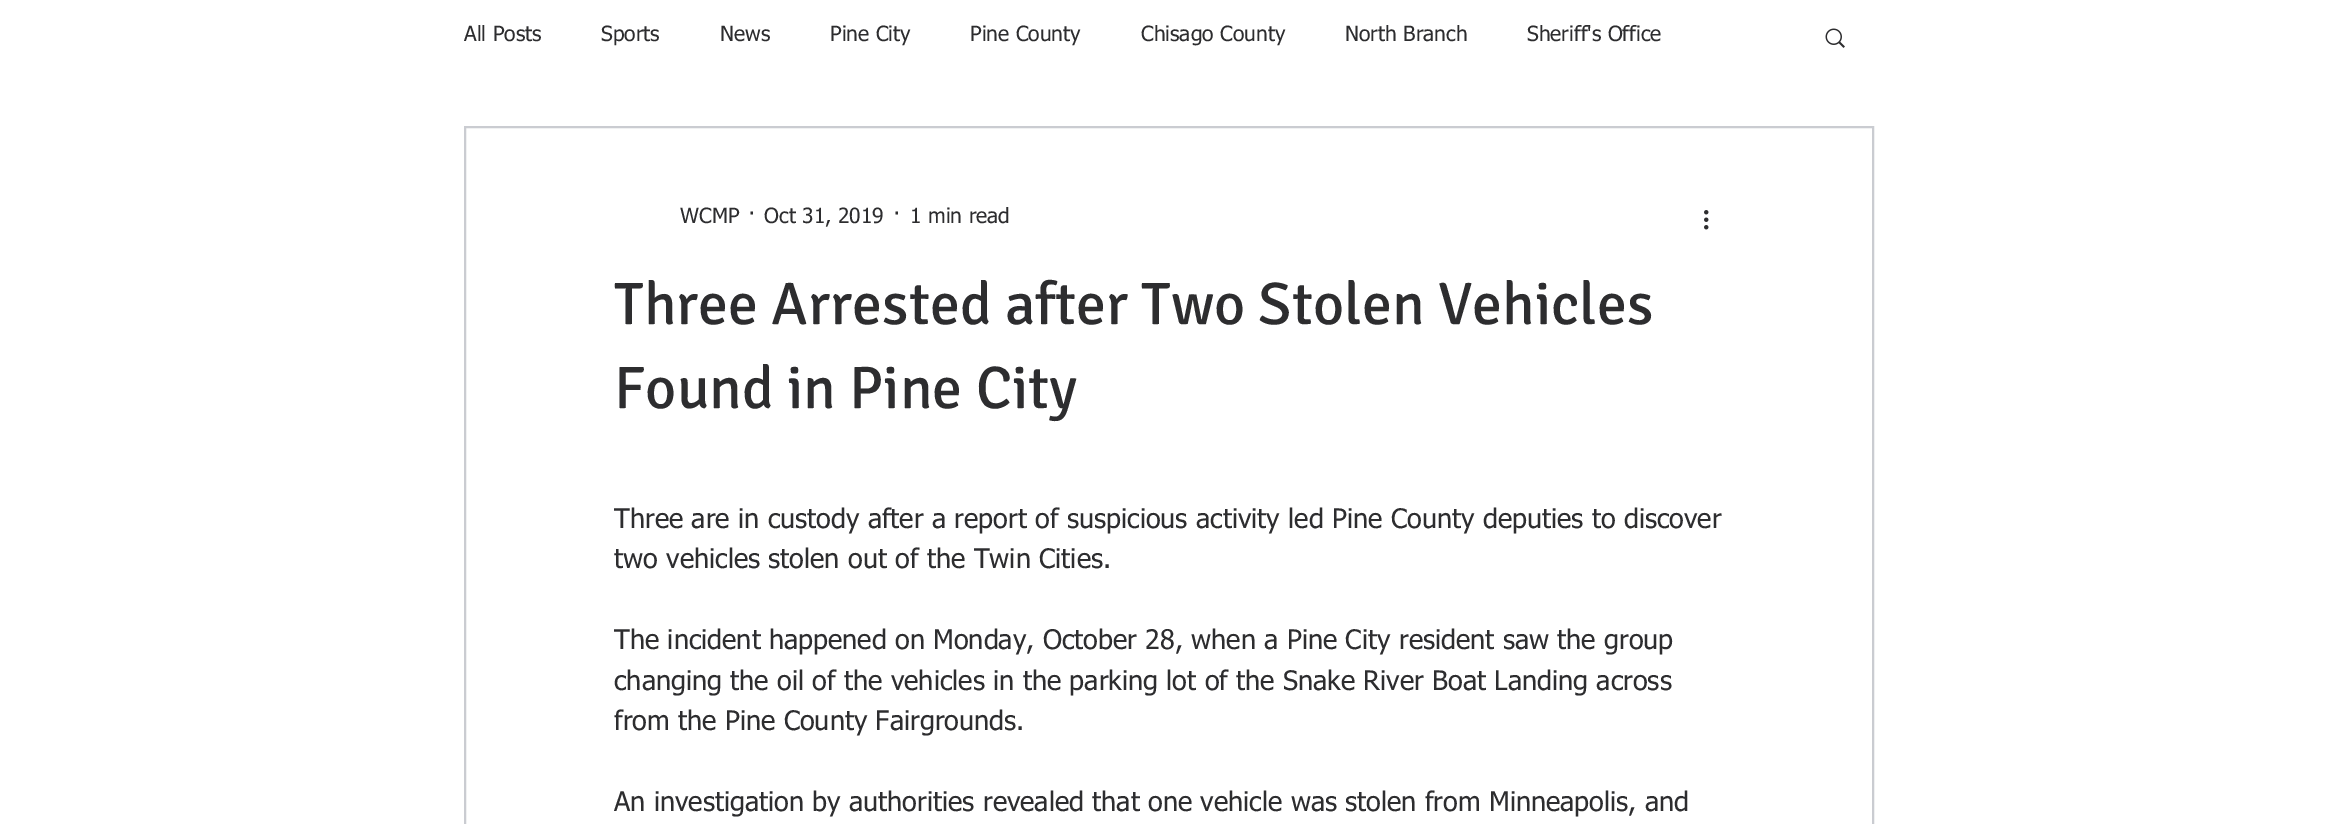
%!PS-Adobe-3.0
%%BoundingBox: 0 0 2337 824
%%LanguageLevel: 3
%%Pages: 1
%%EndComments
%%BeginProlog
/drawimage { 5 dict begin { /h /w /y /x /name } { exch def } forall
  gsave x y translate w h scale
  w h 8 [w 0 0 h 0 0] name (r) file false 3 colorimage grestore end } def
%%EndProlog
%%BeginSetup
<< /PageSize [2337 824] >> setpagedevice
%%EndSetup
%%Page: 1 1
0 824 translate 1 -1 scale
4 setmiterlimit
1 setgray
0 0 2337 824 rectfill
(images/1.raw) 1825 28 20 20 drawimage
0.792 0.8 0.82 setrgbcolor
2 setlinewidth
465 127 1408 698 rectstroke
(images/2.raw) 1704 210 5 20 drawimage
/tahoma-Regular [21 0 0 -21 0 0] selectfont
0.176 0.176 0.184 setrgbcolor
464 41 moveto (All Posts) show
601 41 moveto (Sports) show
720 41 moveto (News) show
830 41 moveto (Pine City) show
970 41 moveto (Pine County) show
1141 41 moveto (Chisago County) show
1345 41 moveto (North Branch) show
1527 41 moveto (Sheriff's Office) show
680 223 moveto (WCMP) show
748 223 moveto (·) show
764 223 moveto (Oct 31, 2019) show
893 223 moveto (·) show
910 223 moveto (1 min read) show
/Signika-Regular [60 0 0 -60 0 0] selectfont
614 324 moveto (Three Arrested after Two Stolen Vehicles) show
614 408 moveto (Found in Pine City) show
/tahoma-Regular [27 0 0 -27 0 0] selectfont
614 528 moveto (Three are in custody after a report of suspicious activity led Pine County deputies to discover) show
614 568 moveto (two vehicles stolen out of the Twin Cities.) show
614 649 moveto (The incident happened on Monday, October 28, when a Pine City resident saw the group) show
614 690 moveto (changing the oil of the vehicles in the parking lot of the Snake River Boat Landing across) show
614 730 moveto (from the Pine County Fairgrounds.) show
614 811 moveto (An investigation by authorities revealed that one vehicle was stolen from Minneapolis, and) show
showpage
%%EOF
